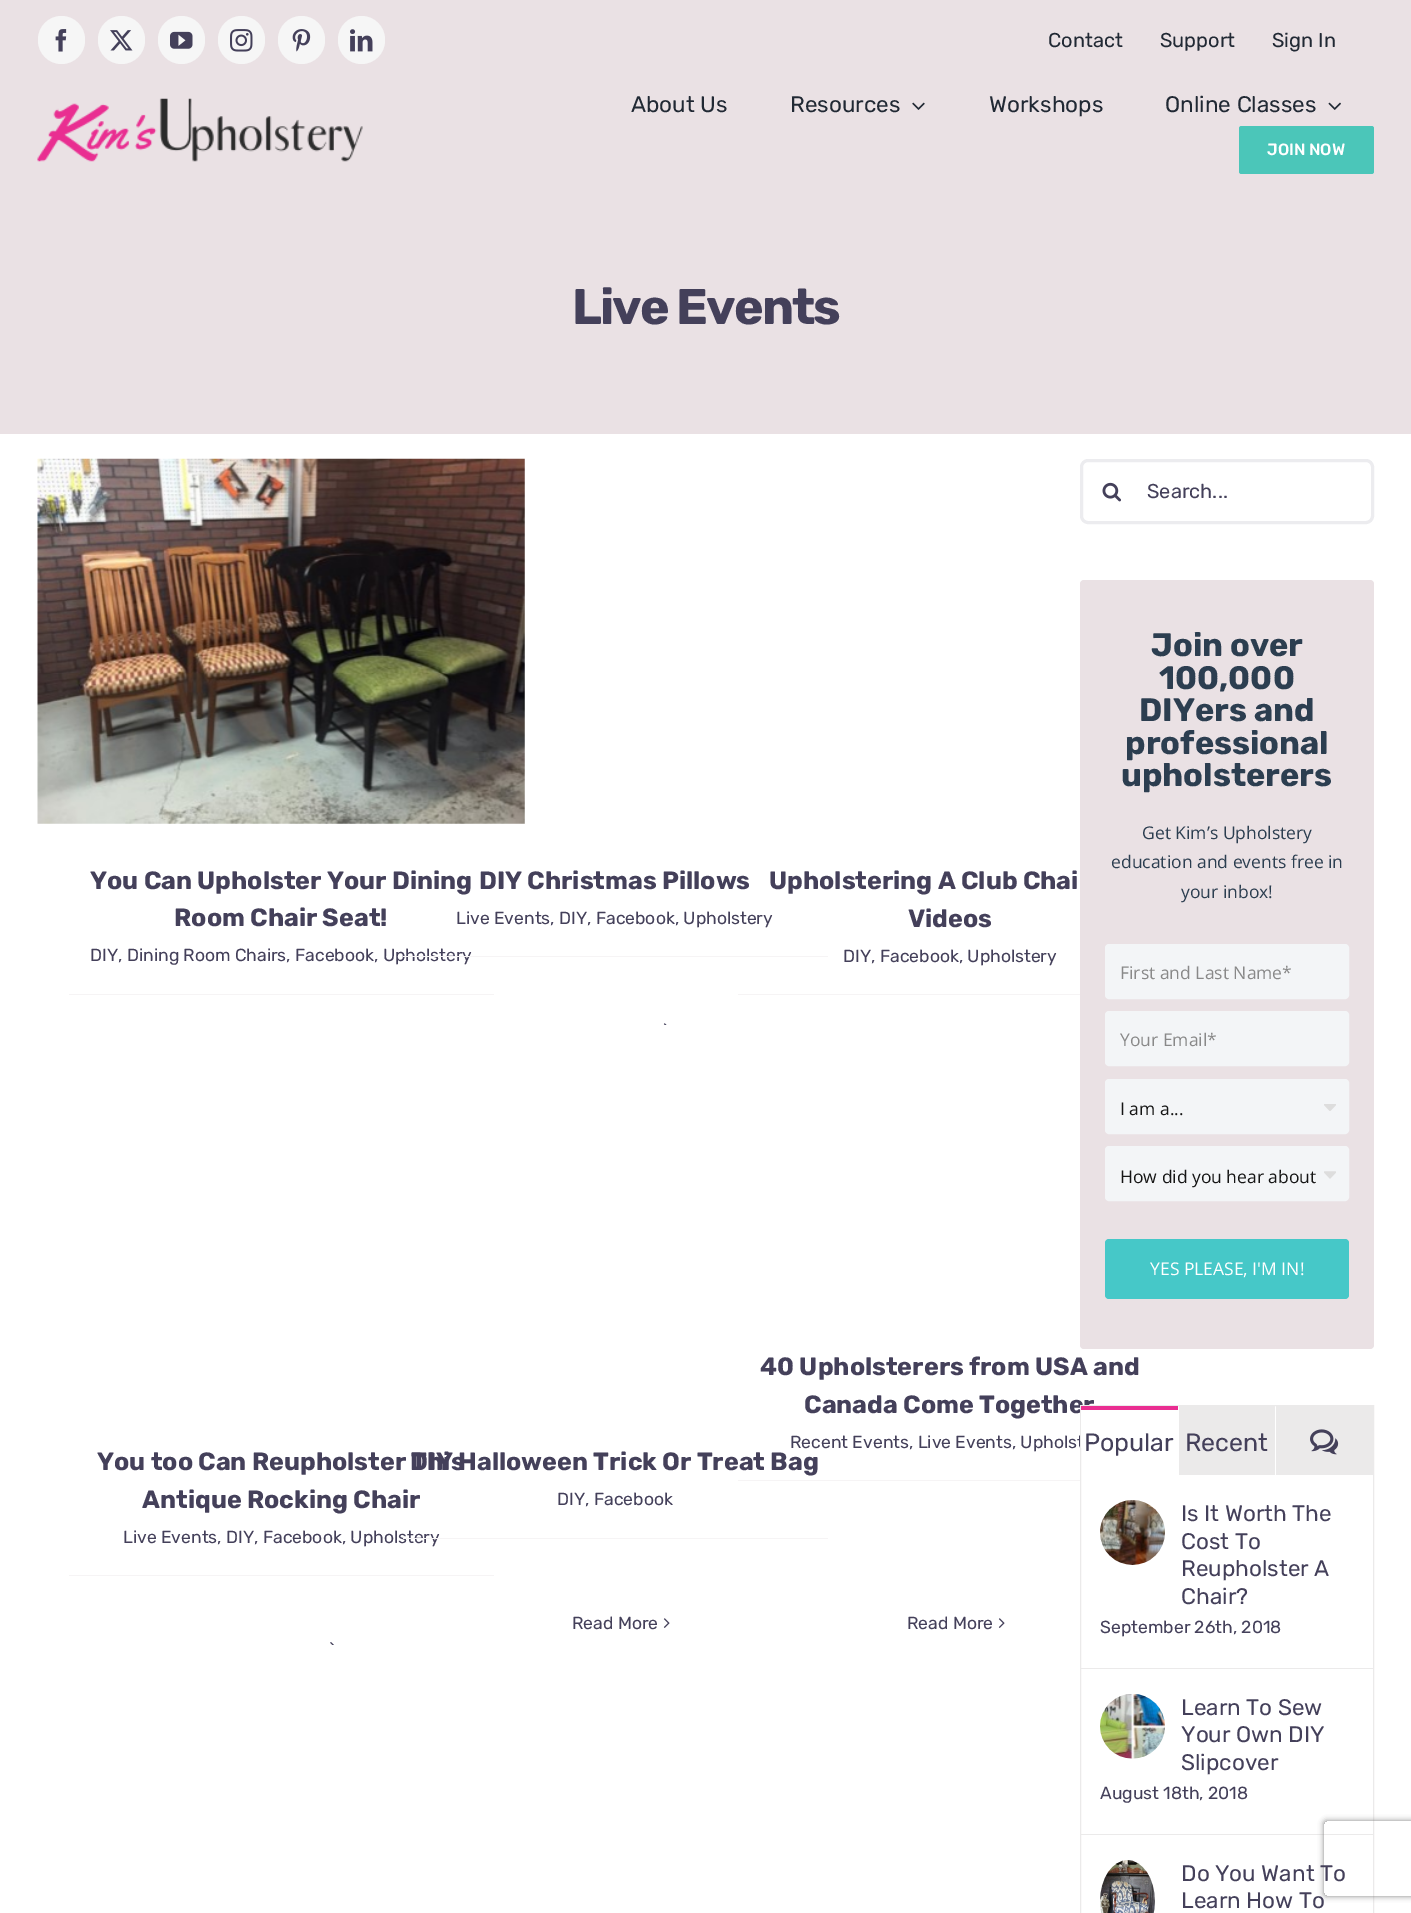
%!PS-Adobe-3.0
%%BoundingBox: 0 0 1411 1913
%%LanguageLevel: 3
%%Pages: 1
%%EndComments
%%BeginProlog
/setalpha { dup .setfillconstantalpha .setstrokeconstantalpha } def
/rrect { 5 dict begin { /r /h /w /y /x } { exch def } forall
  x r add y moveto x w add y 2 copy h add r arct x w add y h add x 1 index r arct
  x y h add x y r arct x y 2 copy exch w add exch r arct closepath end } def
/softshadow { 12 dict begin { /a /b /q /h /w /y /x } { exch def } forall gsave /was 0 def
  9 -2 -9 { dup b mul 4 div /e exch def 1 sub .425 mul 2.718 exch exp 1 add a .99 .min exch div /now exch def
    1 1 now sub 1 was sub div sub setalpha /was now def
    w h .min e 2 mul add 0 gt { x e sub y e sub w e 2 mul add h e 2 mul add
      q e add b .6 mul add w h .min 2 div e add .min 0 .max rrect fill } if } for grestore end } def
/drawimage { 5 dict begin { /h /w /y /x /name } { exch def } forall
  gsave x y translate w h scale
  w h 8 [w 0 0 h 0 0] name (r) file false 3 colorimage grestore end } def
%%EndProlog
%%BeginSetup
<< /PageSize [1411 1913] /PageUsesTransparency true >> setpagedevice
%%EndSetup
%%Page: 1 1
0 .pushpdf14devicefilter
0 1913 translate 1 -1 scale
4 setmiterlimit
1 setgray
0 0 1411 1913 rectfill
0.918 0.882 0.894 setrgbcolor
0 0 1411 181 rectfill
0.965 setgray
38 16 47 48 23.5 rrect fill
(images/1.raw) 55 29 12 23 drawimage
98 16 47 48 23.5 rrect fill
(images/2.raw) 110 30 23 21 drawimage
158 16 47 48 23.5 rrect fill
(images/3.raw) 170 31 23 18 drawimage
218 16 47 48 23.5 rrect fill
(images/4.raw) 230 29 23 23 drawimage
278 16 47 48 23.5 rrect fill
(images/5.raw) 292 29 19 23 drawimage
338 16 47 48 23.5 rrect fill
(images/6.raw) 350 29 23 23 drawimage
(images/7.raw) 37 98 326 64 drawimage
(images/8.raw) 912 102 13 8 drawimage
(images/9.raw) 1328 102 13 8 drawimage
0.294 0.776 0.725 setrgbcolor
1239 126 135 48 2.5 rrect fill
0.918 0.882 0.894 setrgbcolor
0 181 1411 253 rectfill
(images/10.raw) 37 458 488 366 drawimage
0.965 0.957 0.961 setrgbcolor
69 994 425 1 rectfill
(images/11.raw) 663 1023 4 2 drawimage
738 994 342 1 rectfill
69 1575 425 1 rectfill
(images/12.raw) 330 1642 4 3 drawimage
(images/13.raw) 663 1618 7 10 drawimage
738 1480 342 1 rectfill
(images/13.raw) 998 1618 7 10 drawimage
0.925 0.925 0.937 setrgbcolor
3 setlinewidth
1081.5 460.5 291 62 6.5 rrect stroke
(images/14.raw) 1102 482 19 20 drawimage
0.918 0.882 0.894 setrgbcolor
1080 580 294 769 4 rrect fill
0.953 0.961 0.969 setrgbcolor
1106.5 945.5 241 52 2.5 rrect gsave fill grestore
stroke
1106.5 1012.5 241 52 2.5 rrect gsave fill grestore
stroke
1106.5 1080.5 241 52 2.5 rrect gsave fill grestore
stroke
(images/15.raw) 1324 1104 12 7 drawimage
1106.5 1147.5 241 52 2.5 rrect gsave fill grestore
stroke
(images/16.raw) 1324 1171 12 8 drawimage
0.275 0.784 0.784 setrgbcolor
1105 1239 244 60 4 rrect fill
/Rubik-Regular [20 0 0 -20 0 0] selectfont
0.129 0.161 0.204 setrgbcolor
1048 47 moveto (Contact) show
1160 47 moveto (Support) show
1272 47 moveto (Sign In) show
/Rubik-Regular [22.5 0 0 -22.5 0 0] selectfont
631 112 moveto (About Us) show
790 112 moveto (Resources) show
989 112 moveto (Workshops) show
1165 112 moveto (Online Classes) show
/Rubik-Medium [16.25 0 0 -16.25 0 0] selectfont
1 setgray
1267 155 moveto (JOIN NOW) show
/Rubik-Bold [50 0 0 -50 0 0] selectfont
0.267 0.251 0.353 setrgbcolor
572 324 moveto -2 0 (Live Events) ashow
/Rubik-Bold [25 0 0 -25 0 0] selectfont
90 889 moveto (You Can Upholster Your Dining) show
174 926 moveto (Room Chair Seat!) show
/Rubik-Regular [17.5 0 0 -17.5 0 0] selectfont
90 961 moveto (DIY, Dining Room Chairs, Facebook, Upholstery) show
/Rubik-Bold [25 0 0 -25 0 0] selectfont
479 889 moveto (DIY Christmas Pillows) show
/Rubik-Regular [17.5 0 0 -17.5 0 0] selectfont
456 924 moveto (Live Events, DIY, Facebook, Upholstery) show
0.965 0.957 0.961 setrgbcolor
403 956 425 1 rectfill
/Rubik-Bold [25 0 0 -25 0 0] selectfont
0.267 0.251 0.353 setrgbcolor
769 889 moveto (Upholstering A Club Chai) show
908 927 moveto (Videos) show
/Rubik-Regular [17.5 0 0 -17.5 0 0] selectfont
843 962 moveto (DIY, Facebook, Upholstery) show
/Rubik-Bold [25 0 0 -25 0 0] selectfont
97 1470 moveto (You too Can Reupholster This) show
142 1508 moveto (Antique Rocking Chair) show
/Rubik-Regular [17.5 0 0 -17.5 0 0] selectfont
123 1543 moveto (Live Events, DIY, Facebook, Upholstery) show
/Rubik-Bold [25 0 0 -25 0 0] selectfont
410 1470 moveto (DIY Halloween Trick Or Treat Bag) show
/Rubik-Regular [17.5 0 0 -17.5 0 0] selectfont
557 1505 moveto (DIY, Facebook) show
0.965 0.957 0.961 setrgbcolor
403 1538 425 1 rectfill
0.267 0.251 0.353 setrgbcolor
572 1629 moveto (Read More) show
/Rubik-Bold [25 0 0 -25 0 0] selectfont
760 1375 moveto (40 Upholsterers from USA and) show
804 1413 moveto (Canada Come Together) show
/Rubik-Regular [17.5 0 0 -17.5 0 0] selectfont
790 1448 moveto (Recent Events, Live Events, Upholst) show
907 1629 moveto (Read More) show
/Rubik-Regular [20 0 0 -20 0 0] selectfont
1147 498 moveto (Search...) show
/Rubik-Bold [32.5 0 0 -32.5 0 0] selectfont
0.173 0.243 0.314 setrgbcolor
1151 656 moveto (Join over) show
1159 689 moveto (100,000) show
1139 721 moveto (DIYers and) show
1125 754 moveto (professional) show
1121 786 moveto (upholsterers) show
/OpenSans-Regular [17.5 0 0 -17.5 0 0] selectfont
1142 839 moveto (Get Kim’s Upholstery) show
1111 868 moveto (education and events free in) show
1181 898 moveto (your inbox!) show
0.537 setgray
1120 979 moveto (First and Last Name*) show
1120 1046 moveto (Your Email*) show
0.082 setgray
1120 1115 moveto (I am a...) show
1120 1183 moveto (How did you hear about) show
1 setgray
1150 1275 moveto (YES PLEASE, I'M IN!) show
0.922 0.918 0.918 setrgbcolor
1 setlinewidth
1080.5 1405.5 293 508 rectstroke
1 setgray
1081 1410 9 38 rectfill
0.914 0.18 0.569 setrgbcolor
1081 1406 97 4 rectfill
/Rubik-Regular [25 0 0 -25 0 0] selectfont
0.267 0.251 0.353 setrgbcolor
1084 1451 moveto (Popular) show
0.922 0.918 0.918 setrgbcolor
1179 1406 96 69 rectfill
0.267 0.251 0.353 setrgbcolor
1185 1451 moveto (Recent) show
0.922 0.918 0.918 setrgbcolor
1276 1406 97 69 rectfill
(images/17.raw) 1310 1429 29 26 drawimage
1081 1668 292 1 rectfill
(images/18.raw) 1100 1500 65 65 drawimage
/Rubik-Regular [22.5 0 0 -22.5 0 0] selectfont
0.267 0.251 0.353 setrgbcolor
1181 1521 moveto (Is It Worth The) show
1181 1549 moveto (Cost To) show
1181 1576 moveto (Reupholster A) show
1181 1604 moveto (Chair?) show
/Rubik-Regular [17.5 0 0 -17.5 0 0] selectfont
1100 1633 moveto (September 26th, 2018) show
0.922 0.918 0.918 setrgbcolor
1081 1834 292 1 rectfill
gsave
newpath 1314 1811 moveto 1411 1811 lineto 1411 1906 lineto 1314 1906 lineto closepath 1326.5 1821 moveto 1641.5 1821 lineto 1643 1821 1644 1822 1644 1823.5 curveto 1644 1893.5 lineto 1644 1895 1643 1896 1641.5 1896 curveto 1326.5 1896 lineto 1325 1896 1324 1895 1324 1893.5 curveto 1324 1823.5 lineto 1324 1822 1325 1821 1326.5 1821 curveto closepath eoclip newpath
0.502 setgray
1324 1821 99 75 2.5 3 1 softshadow
grestore
(images/19.raw) 1100 1694 65 65 drawimage
/Rubik-Regular [22.5 0 0 -22.5 0 0] selectfont
0.267 0.251 0.353 setrgbcolor
1181 1715 moveto (Learn To Sew) show
1181 1742 moveto (Your Own DIY) show
1181 1770 moveto (Slipcover) show
/Rubik-Regular [17.5 0 0 -17.5 0 0] selectfont
1100 1799 moveto (August 18th, 2018) show
(images/20.raw) 1100 1860 55 53 drawimage
/Rubik-Regular [22.5 0 0 -22.5 0 0] selectfont
1181 1881 moveto (Do You Want To) show
1181 1908 moveto (Learn How To) show
.poppdf14devicefilter showpage
%%EOF
